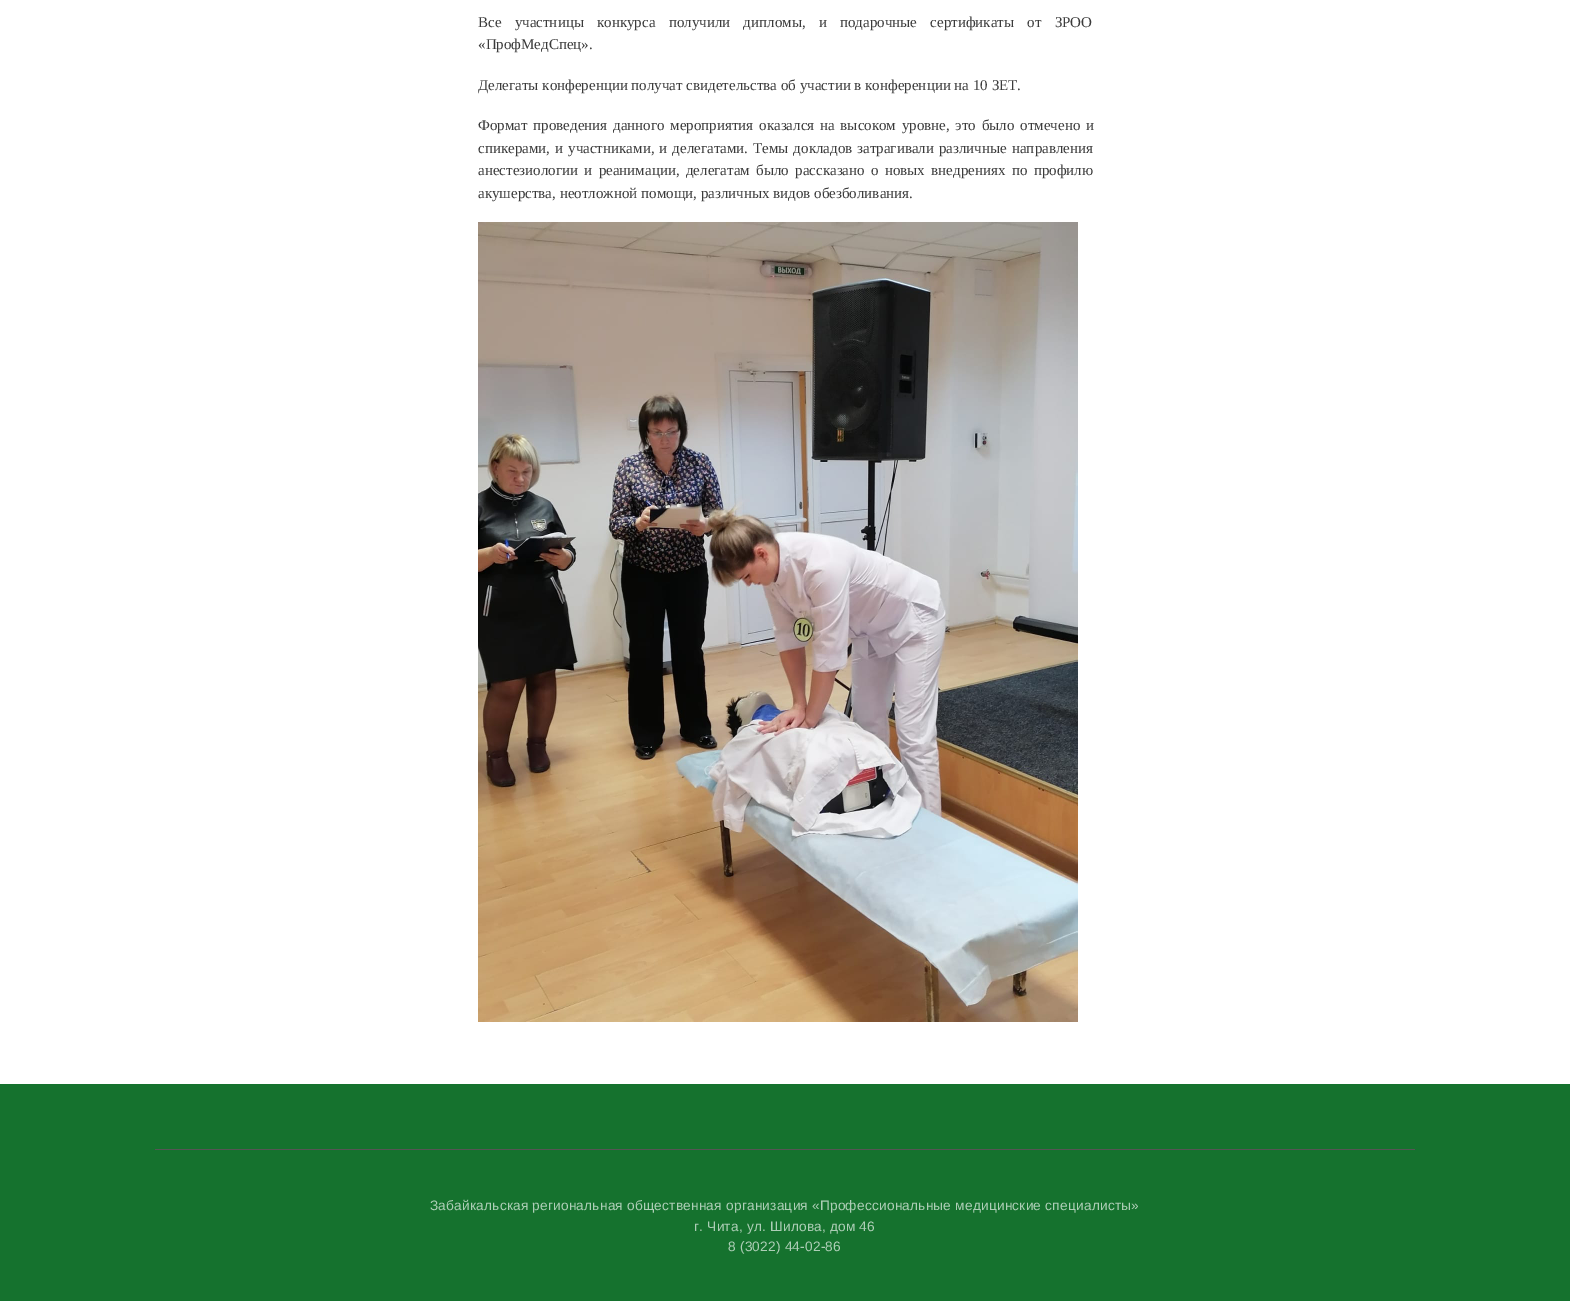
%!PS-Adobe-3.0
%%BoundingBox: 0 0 1570 1301
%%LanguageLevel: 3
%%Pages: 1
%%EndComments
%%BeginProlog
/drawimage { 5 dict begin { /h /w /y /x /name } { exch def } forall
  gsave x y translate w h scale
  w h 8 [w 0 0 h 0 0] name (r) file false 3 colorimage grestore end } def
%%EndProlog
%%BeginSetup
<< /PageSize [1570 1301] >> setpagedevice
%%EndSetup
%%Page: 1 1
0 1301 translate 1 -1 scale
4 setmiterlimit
1 setgray
0 0 1570 1301 rectfill
(images/1.raw) 478 222 600 800 drawimage
0.082 0.447 0.18 setrgbcolor
0 1084 1570 217 rectfill
0.333 setgray
155 1149 1260 1 rectfill
/LiberationSerif-Regular [15 0 0 -15 0 0] selectfont
0.231 setgray
478 27 moveto 9.5 0 32 (Все участницы конкурса получили дипломы, и подарочные сертификаты от ЗРОО) widthshow
478 49 moveto («ПрофМедСпец».) show
478 90 moveto (Делегаты конференции получат свидетельства об участии в конференции на 10 ЗЕТ.) show
478 130 moveto 2 0 32 (Формат проведения данного мероприятия оказался на высоком уровне, это было отмечено и) widthshow
478 153 moveto 1.25 0 32 (спикерами, и участниками, и делегатами. Темы докладов затрагивали различные направления) widthshow
478 175 moveto 2.6 0 32 (анестезиологии и реанимации, делегатам было рассказано о новых внедрениях по профилю) widthshow
478 198 moveto (акушерства, неотложной помощи, различных видов обезболивания.) show
/LiberationSans-Regular [13.7 0 0 -13.7 0 0] selectfont
0.678 0.808 0.714 setrgbcolor
430 1210 moveto 0.2 0 (Забайкальская региональная общественная организация «Профессиональные медицинские специалисты») ashow
694 1231 moveto 0.2 0 (г. Чита, ул. Шилова, дом 46) ashow
728 1251 moveto 0.2 0 (8 \(3022\) 44-02-86) ashow
showpage
%%EOF
